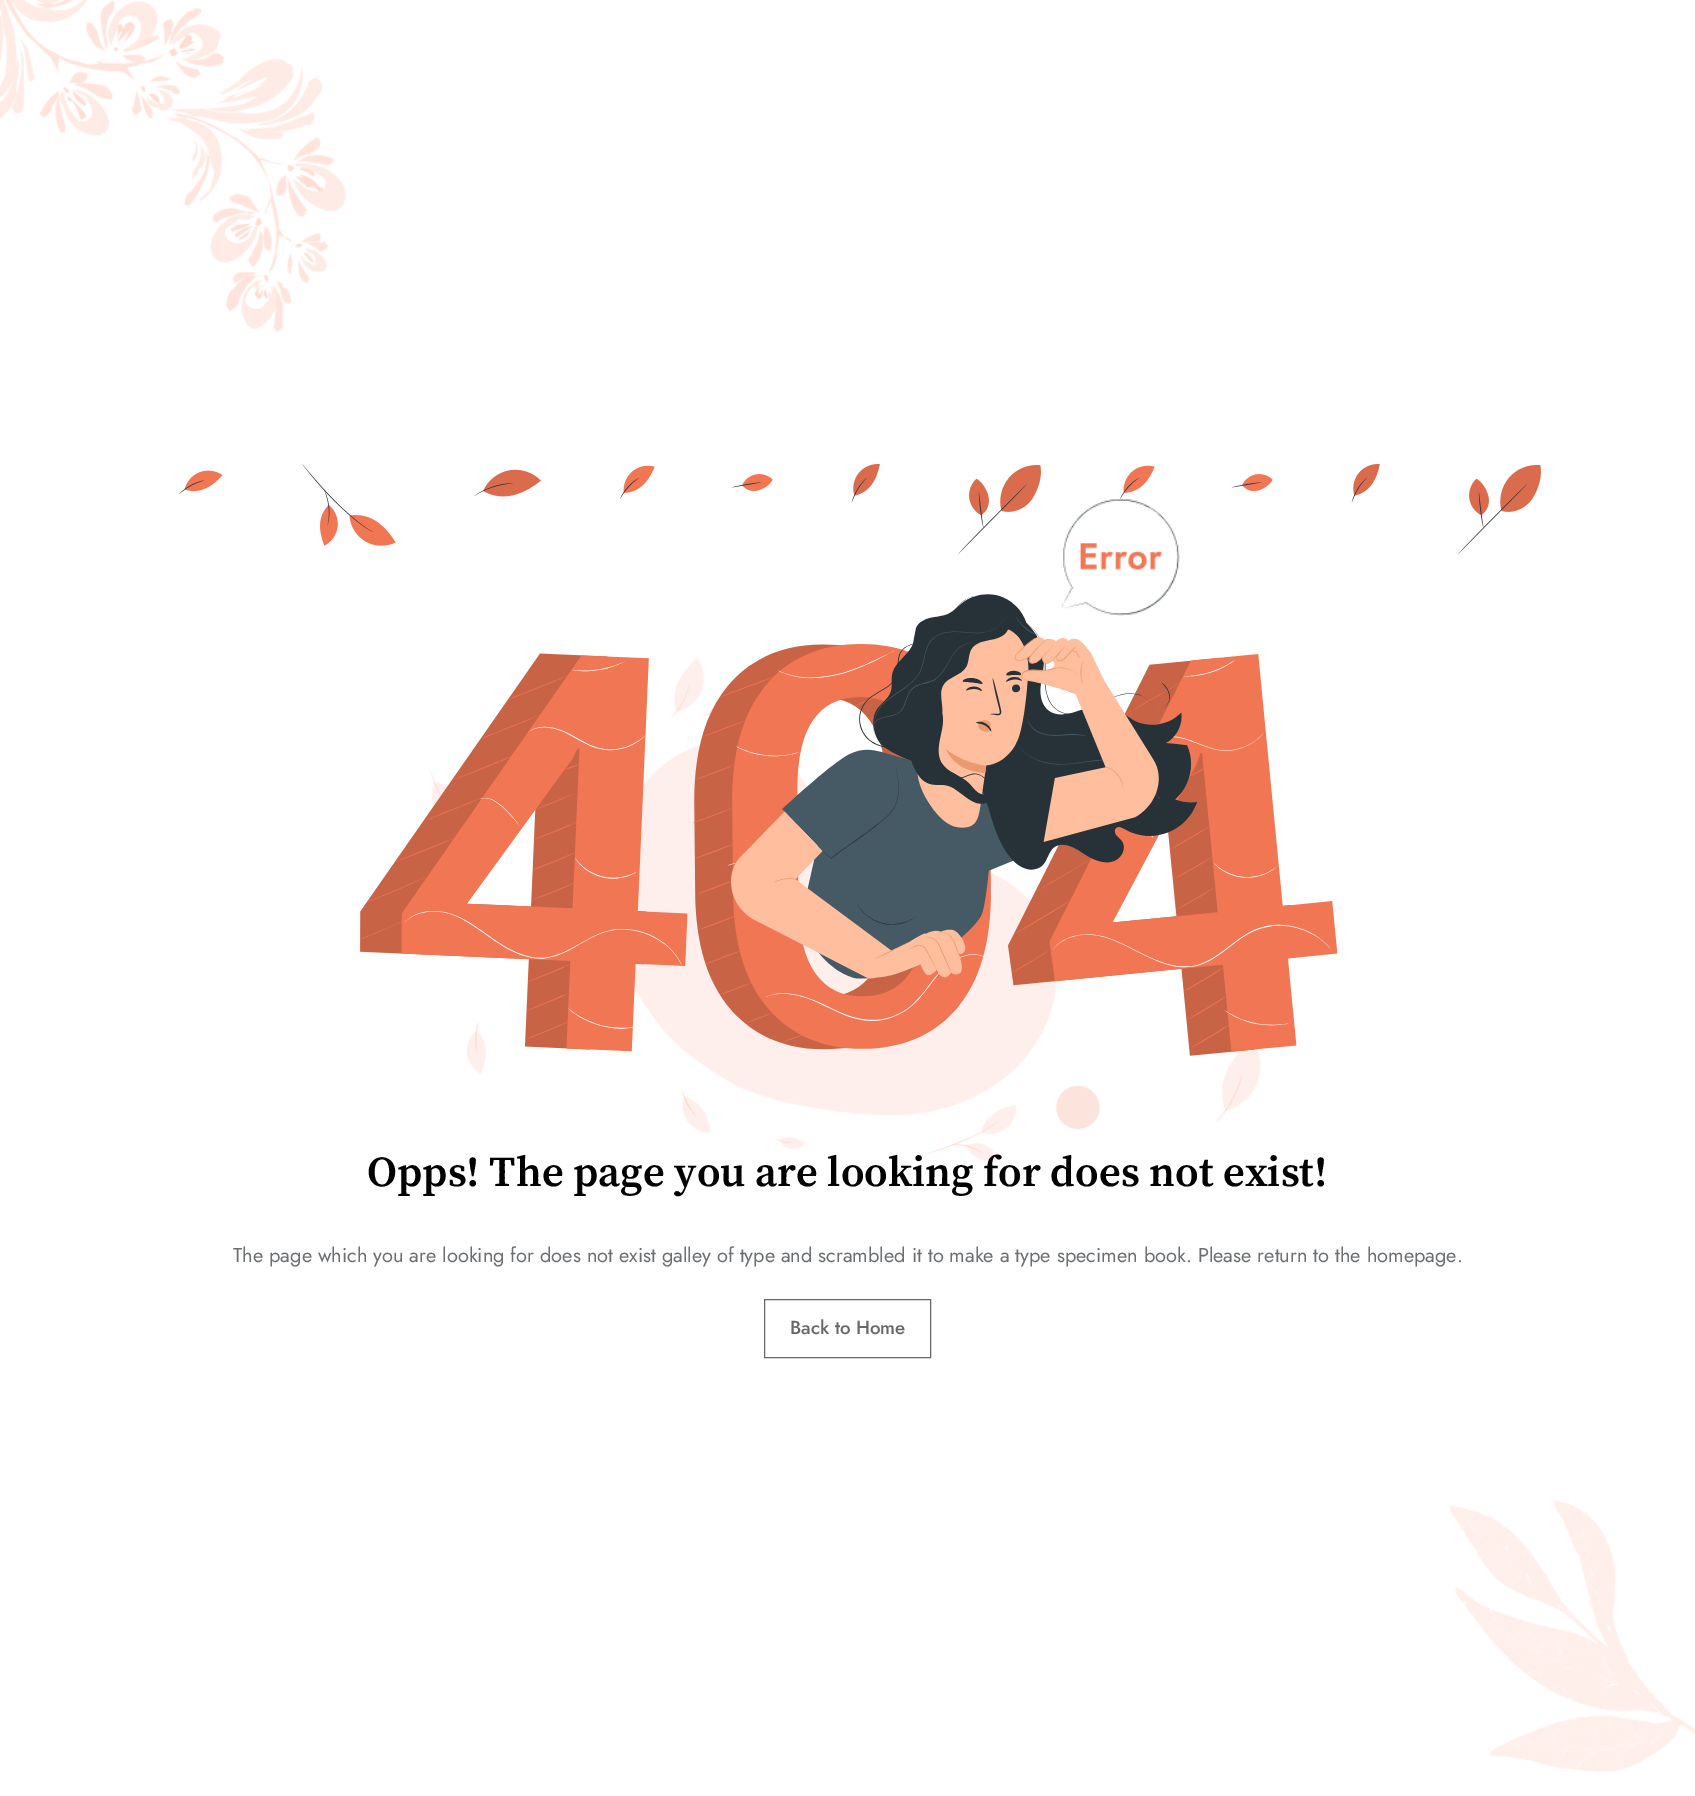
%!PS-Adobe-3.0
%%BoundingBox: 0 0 1695 1796
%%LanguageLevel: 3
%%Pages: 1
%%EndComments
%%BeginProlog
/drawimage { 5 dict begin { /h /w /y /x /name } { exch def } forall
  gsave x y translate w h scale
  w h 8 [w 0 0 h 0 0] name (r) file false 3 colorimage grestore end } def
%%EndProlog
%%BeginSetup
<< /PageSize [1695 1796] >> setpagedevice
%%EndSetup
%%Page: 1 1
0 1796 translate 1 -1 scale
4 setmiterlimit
1 setgray
0 0 1695 1796 rectfill
(images/1.raw) 0 0 346 332 drawimage
(images/2.raw) 430 658 831 504 drawimage
(images/3.raw) 1450 1500 245 273 drawimage
(images/4.raw) 179 470 44 25 drawimage
(images/5.raw) 302 464 94 82 drawimage
(images/6.raw) 474 469 67 28 drawimage
(images/7.raw) 620 465 35 34 drawimage
(images/8.raw) 731 474 42 17 drawimage
(images/9.raw) 851 464 29 39 drawimage
(images/10.raw) 957 465 84 90 drawimage
(images/7.raw) 1120 465 35 34 drawimage
(images/8.raw) 1231 474 42 17 drawimage
(images/9.raw) 1351 464 29 39 drawimage
(images/10.raw) 1457 465 84 90 drawimage
(images/13.raw) 359 644 979 412 drawimage
(images/12.raw) 731 594 467 385 drawimage
(images/11.raw) 1061 499 119 117 drawimage
0.408 setgray
764.5 1299.5 166 58 rectstroke
/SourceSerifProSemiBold-SemiBold [42.5 0 0 -42.5 0 0] selectfont
0 setgray
367 1186 moveto (Opps! The page you are looking for does not exist!) show
/Jost-Regular [20 0 0 -20 0 0] selectfont
0.424 0.435 0.447 setrgbcolor
233 1262 moveto (The page which you are looking for does not exist galley of type and scrambled it to make a type specimen book. Please return to the homepage.) show
/Jost-Medium [18.75 0 0 -18.75 0 0] selectfont
0.408 setgray
790 1334 moveto (Back to Home) show
showpage
%%EOF
